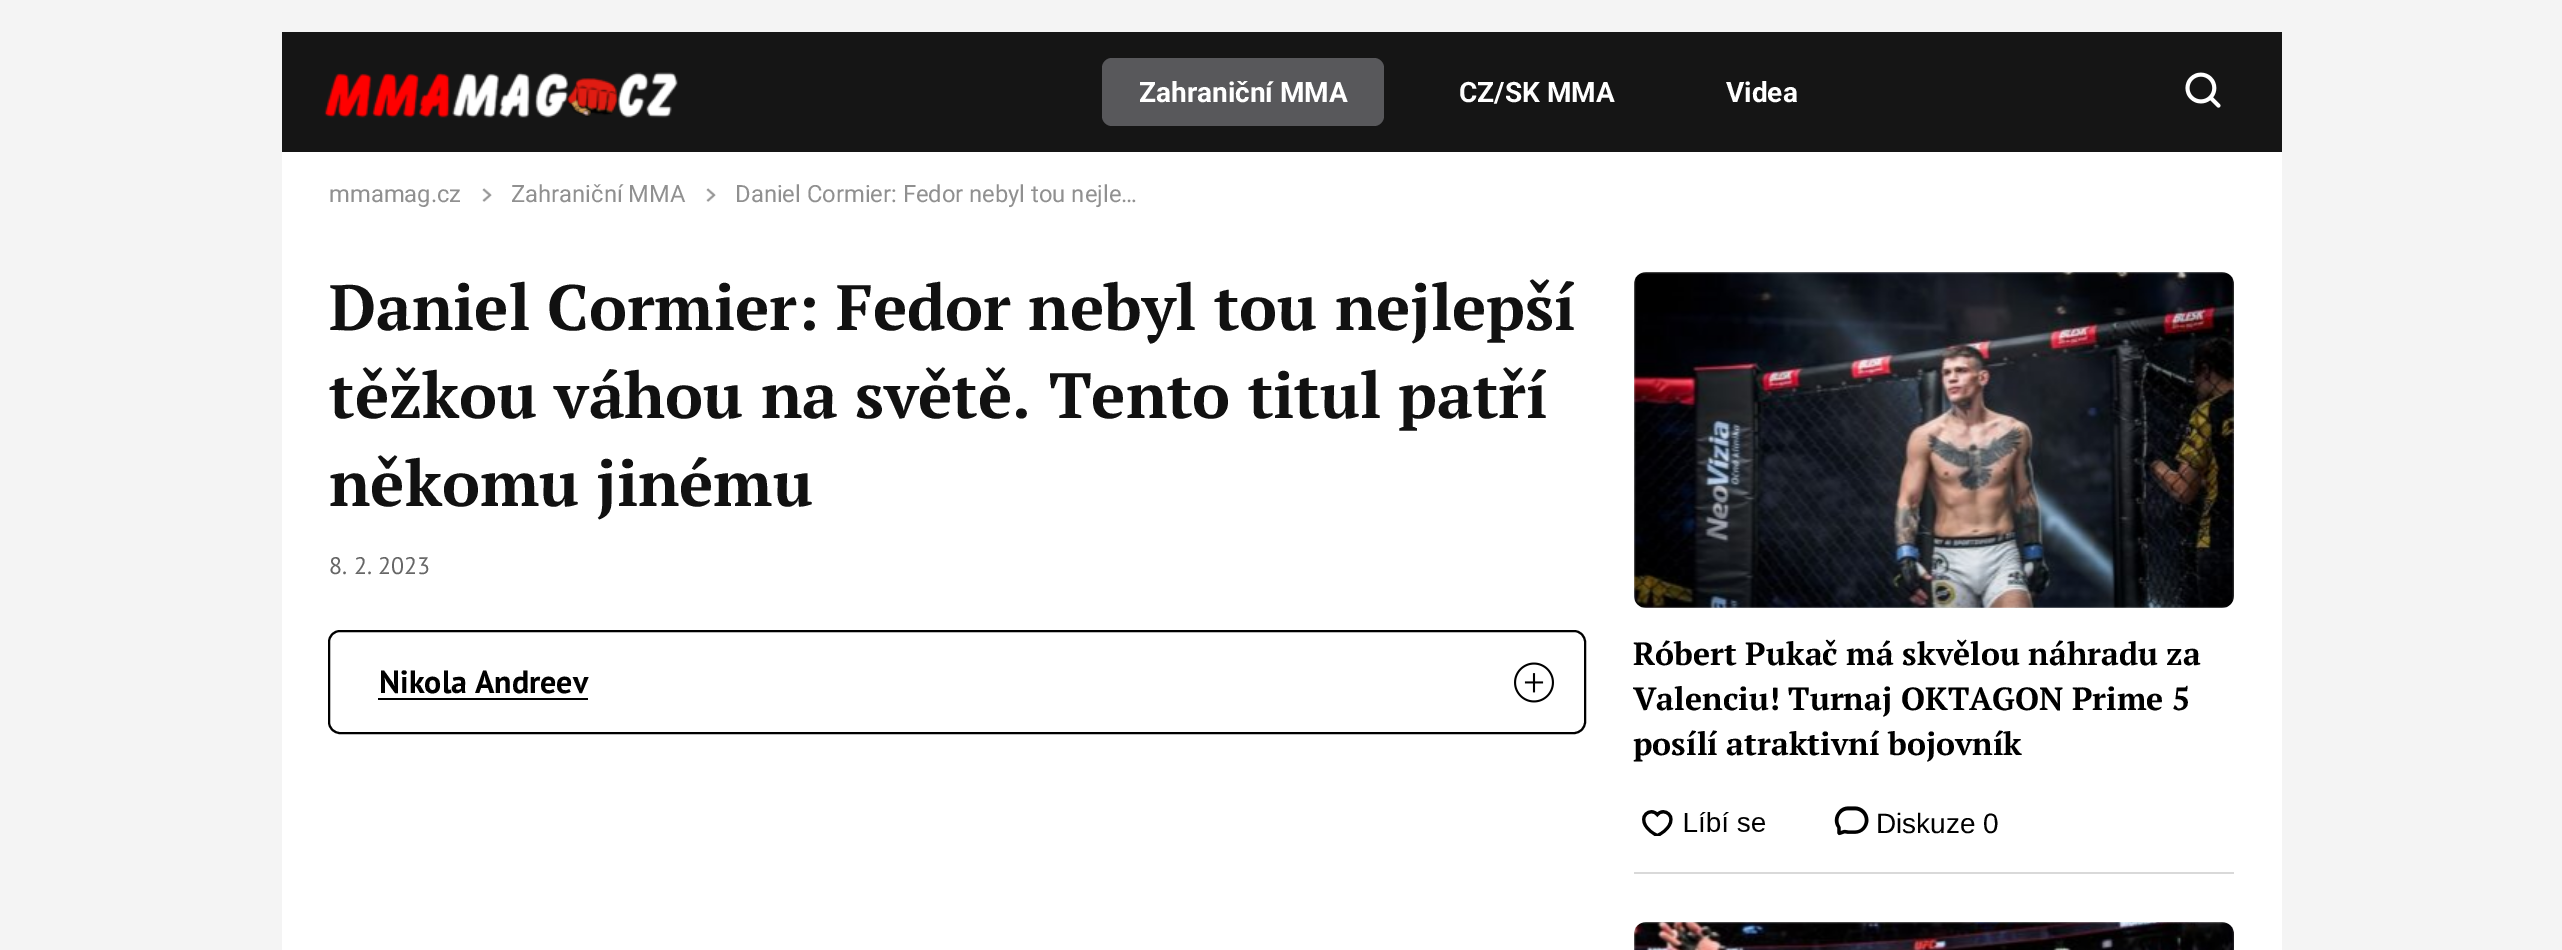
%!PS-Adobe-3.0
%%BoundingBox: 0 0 2562 950
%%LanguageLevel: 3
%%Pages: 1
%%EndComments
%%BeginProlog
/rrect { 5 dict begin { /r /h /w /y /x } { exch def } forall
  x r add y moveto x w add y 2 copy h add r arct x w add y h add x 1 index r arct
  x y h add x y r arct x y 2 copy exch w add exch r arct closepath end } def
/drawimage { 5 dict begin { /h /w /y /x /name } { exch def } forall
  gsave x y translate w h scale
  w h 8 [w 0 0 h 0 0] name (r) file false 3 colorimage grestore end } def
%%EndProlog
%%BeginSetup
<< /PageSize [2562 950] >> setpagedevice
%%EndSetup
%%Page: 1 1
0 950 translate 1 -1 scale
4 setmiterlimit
0.957 setgray
0 0 2562 950 rectfill
0.082 setgray
282 32 2000 120 rectfill
(images/1.raw) 324 72 354 46 drawimage
0.345 0.345 0.357 setrgbcolor
1102 58 282 68 10 rrect fill
(images/2.raw) 2185 72 36 36 drawimage
1 setgray
282 152 2000 798 rectfill
(images/3.raw) 482 188 10 14 drawimage
(images/4.raw) 706 188 10 14 drawimage
0 setgray
2 setlinewidth
329 631 1256 102 11 rrect stroke
378 698 210 2 rectfill
(images/5.raw) 1514 662 40 41 drawimage
0.851 setgray
1634 872 600 2 rectfill
0.933 setgray
1634 272 600 336 12 rrect fill
(images/6.raw) 1634 272 600 336 drawimage
(images/7.raw) 1642 810 124 26 drawimage
(images/8.raw) 1834 806 35 30 drawimage
1634 922 600 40 12 rrect fill
(images/9.raw) 1634 922 600 28 drawimage
/Roboto-Bold [28 0 0 -28 0 0] selectfont
1 setgray
1139 102 moveto (Zahraniční MMA) show
1459 102 moveto (CZ/SK MMA) show
1726 102 moveto (Videa) show
/Roboto-Regular [23.75 0 0 -23.75 0 0] selectfont
0.565 setgray
329 202 moveto (mmamag.cz) show
511 202 moveto (Zahraniční MMA) show
735 202 moveto (Daniel Cormier: Fedor nebyl tou nejle…) show
/PTSerif-Bold [64 0 0 -64 0 0] selectfont
0.067 setgray
329 330 moveto (Daniel Cormier: Fedor nebyl tou nejlepší) show
329 418 moveto (těžkou váhou na světě. Tento titul patří) show
329 506 moveto (někomu jinému) show
/PTSans-Regular [24 0 0 -24 0 0] selectfont
0.4 setgray
329 574 moveto (8. 2. 2023) show
/PTSans-Bold [32 0 0 -32 0 0] selectfont
0 setgray
379 693 moveto (Nikola Andreev) show
/PTSerif-Bold [32 0 0 -32 0 0] selectfont
1633 665 moveto (Róbert Pukač má skvělou náhradu za) show
1633 710 moveto (Valenciu! Turnaj OKTAGON Prime 5) show
1633 755 moveto (posílí atraktivní bojovník) show
/LiberationSans-Regular [28 0 0 -28 0 0] selectfont
1876 833 moveto (Diskuze 0) show
showpage
%%EOF
